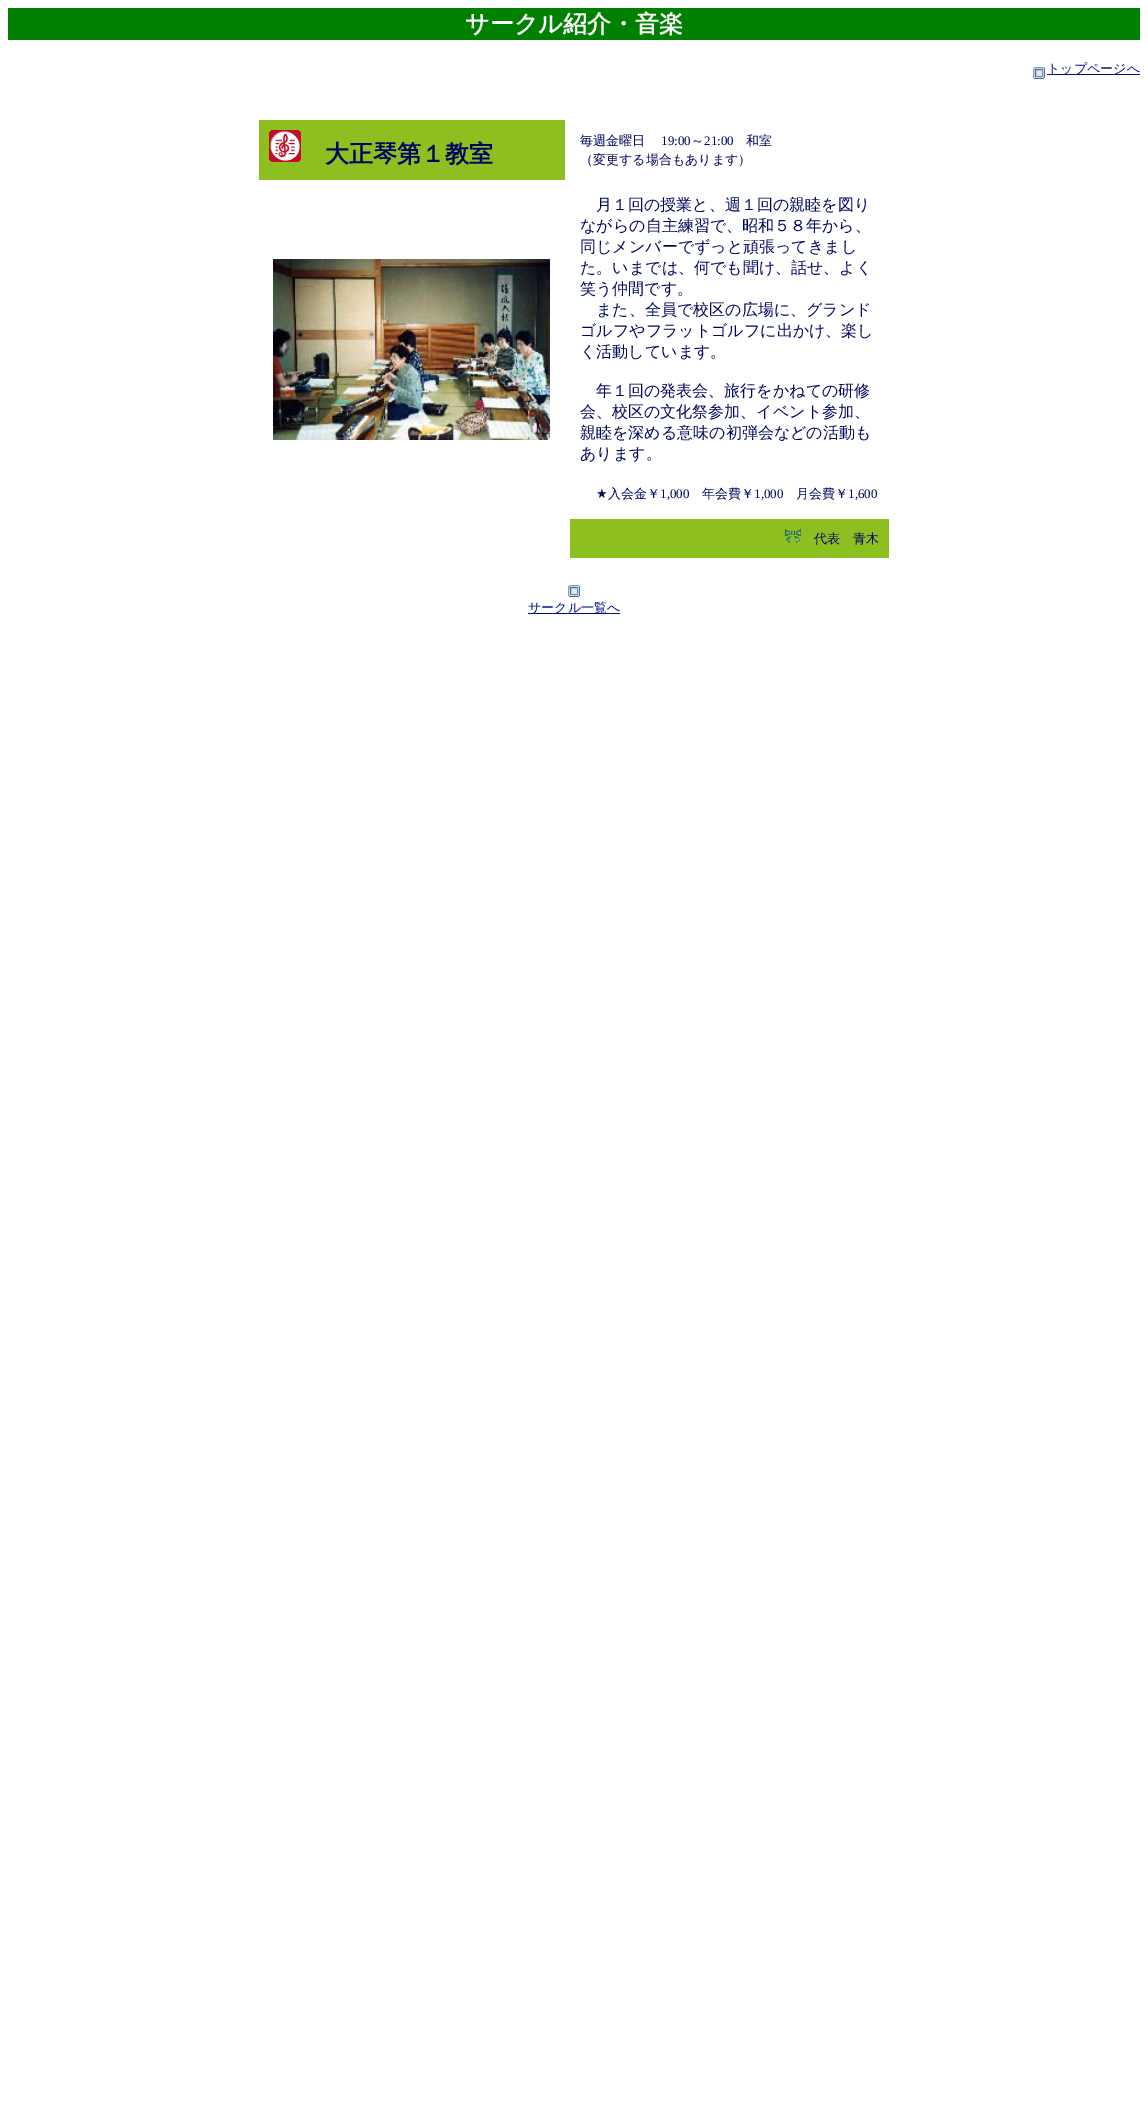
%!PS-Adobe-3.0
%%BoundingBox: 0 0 1148 2103
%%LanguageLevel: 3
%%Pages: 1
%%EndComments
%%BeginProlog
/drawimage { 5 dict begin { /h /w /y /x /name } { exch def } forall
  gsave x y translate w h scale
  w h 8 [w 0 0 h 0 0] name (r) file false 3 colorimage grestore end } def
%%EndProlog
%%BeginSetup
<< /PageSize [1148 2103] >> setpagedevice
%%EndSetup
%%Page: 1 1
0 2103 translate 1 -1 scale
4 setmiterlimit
1 setgray
0 0 1148 2103 rectfill
0 0.502 0 setrgbcolor
8 8 1132 32 rectfill
(images/1.raw) 1033 67 12 12 drawimage
0 0.035 0.565 setrgbcolor
1047 74 93 1 rectfill
0.553 0.749 0.125 setrgbcolor
259 120 306 60 rectfill
(images/2.raw) 269 130 32 32 drawimage
(images/3.raw) 273 259 277 181 drawimage
570 519 319 39 rectfill
(images/4.raw) 785 529 16 14 drawimage
(images/1.raw) 568 585 12 12 drawimage
0 0.035 0.565 setrgbcolor
528 613 92 1 rectfill
/WenQuanYiZenHei-Bold [24 0 0 -24 0 0] selectfont
1 setgray
465 32 moveto (サークル紹介・音楽) show
/WenQuanYiZenHei-Medium [13 0 0 -13 0 0] selectfont
0 0.035 0.565 setrgbcolor
1047 73 moveto (トップページへ) show
/WenQuanYiZenHei-Bold [24 0 0 -24 0 0] selectfont
0 0.024 0.376 setrgbcolor
325 162 moveto (大正琴第１教室) show
/WenQuanYiZenHei-Medium [13 0 0 -13 0 0] selectfont
580 145 moveto (毎週金曜日) show
/LiberationSerif-Regular [13 0 0 -13 0 0] selectfont
661 145 moveto (19:00) show
/WenQuanYiZenHei-Medium [13 0 0 -13 0 0] selectfont
691 145 moveto (～) show
/LiberationSerif-Regular [13 0 0 -13 0 0] selectfont
704 145 moveto (21:00) show
/WenQuanYiZenHei-Medium [13 0 0 -13 0 0] selectfont
746 145 moveto (和室) show
580 164 moveto (（変更する場合もあります）) show
/WenQuanYiZenHei-Medium [16 0 0 -16 0 0] selectfont
596 210 moveto (月１回の授業と、週１回の親睦を図り) show
580 231 moveto (ながらの自主練習で、昭和５８年から、) show
580 252 moveto (同じメンバーでずっと頑張ってきまし) show
580 273 moveto (た。いまでは、何でも聞け、話せ、よく) show
580 294 moveto (笑う仲間です。) show
596 315 moveto (また、全員で校区の広場に、グランド) show
580 336 moveto (ゴルフやフラットゴルフに出かけ、楽し) show
580 357 moveto (く活動しています。) show
596 396 moveto (年１回の発表会、旅行をかねての研修) show
580 417 moveto (会、校区の文化祭参加、イベント参加、) show
580 438 moveto (親睦を深める意味の初弾会などの活動も) show
580 459 moveto (あります。) show
/DejaVuSans-Regular [13 0 0 -13 0 0] selectfont
596 498 moveto (★) show
/WenQuanYiZenHei-Medium [13 0 0 -13 0 0] selectfont
608 498 moveto (入会金￥) show
/LiberationSerif-Regular [13 0 0 -13 0 0] selectfont
660 498 moveto (1,000) show
/WenQuanYiZenHei-Medium [13 0 0 -13 0 0] selectfont
702 498 moveto (年会費￥) show
/LiberationSerif-Regular [13 0 0 -13 0 0] selectfont
754 498 moveto (1,000) show
/WenQuanYiZenHei-Medium [13 0 0 -13 0 0] selectfont
796 498 moveto (月会費￥) show
/LiberationSerif-Regular [13 0 0 -13 0 0] selectfont
848 498 moveto (1,600) show
/WenQuanYiZenHei-Medium [13 0 0 -13 0 0] selectfont
814 543 moveto (代表　青木) show
0 0.035 0.565 setrgbcolor
528 612 moveto (サークル一覧へ) show
showpage
%%EOF
